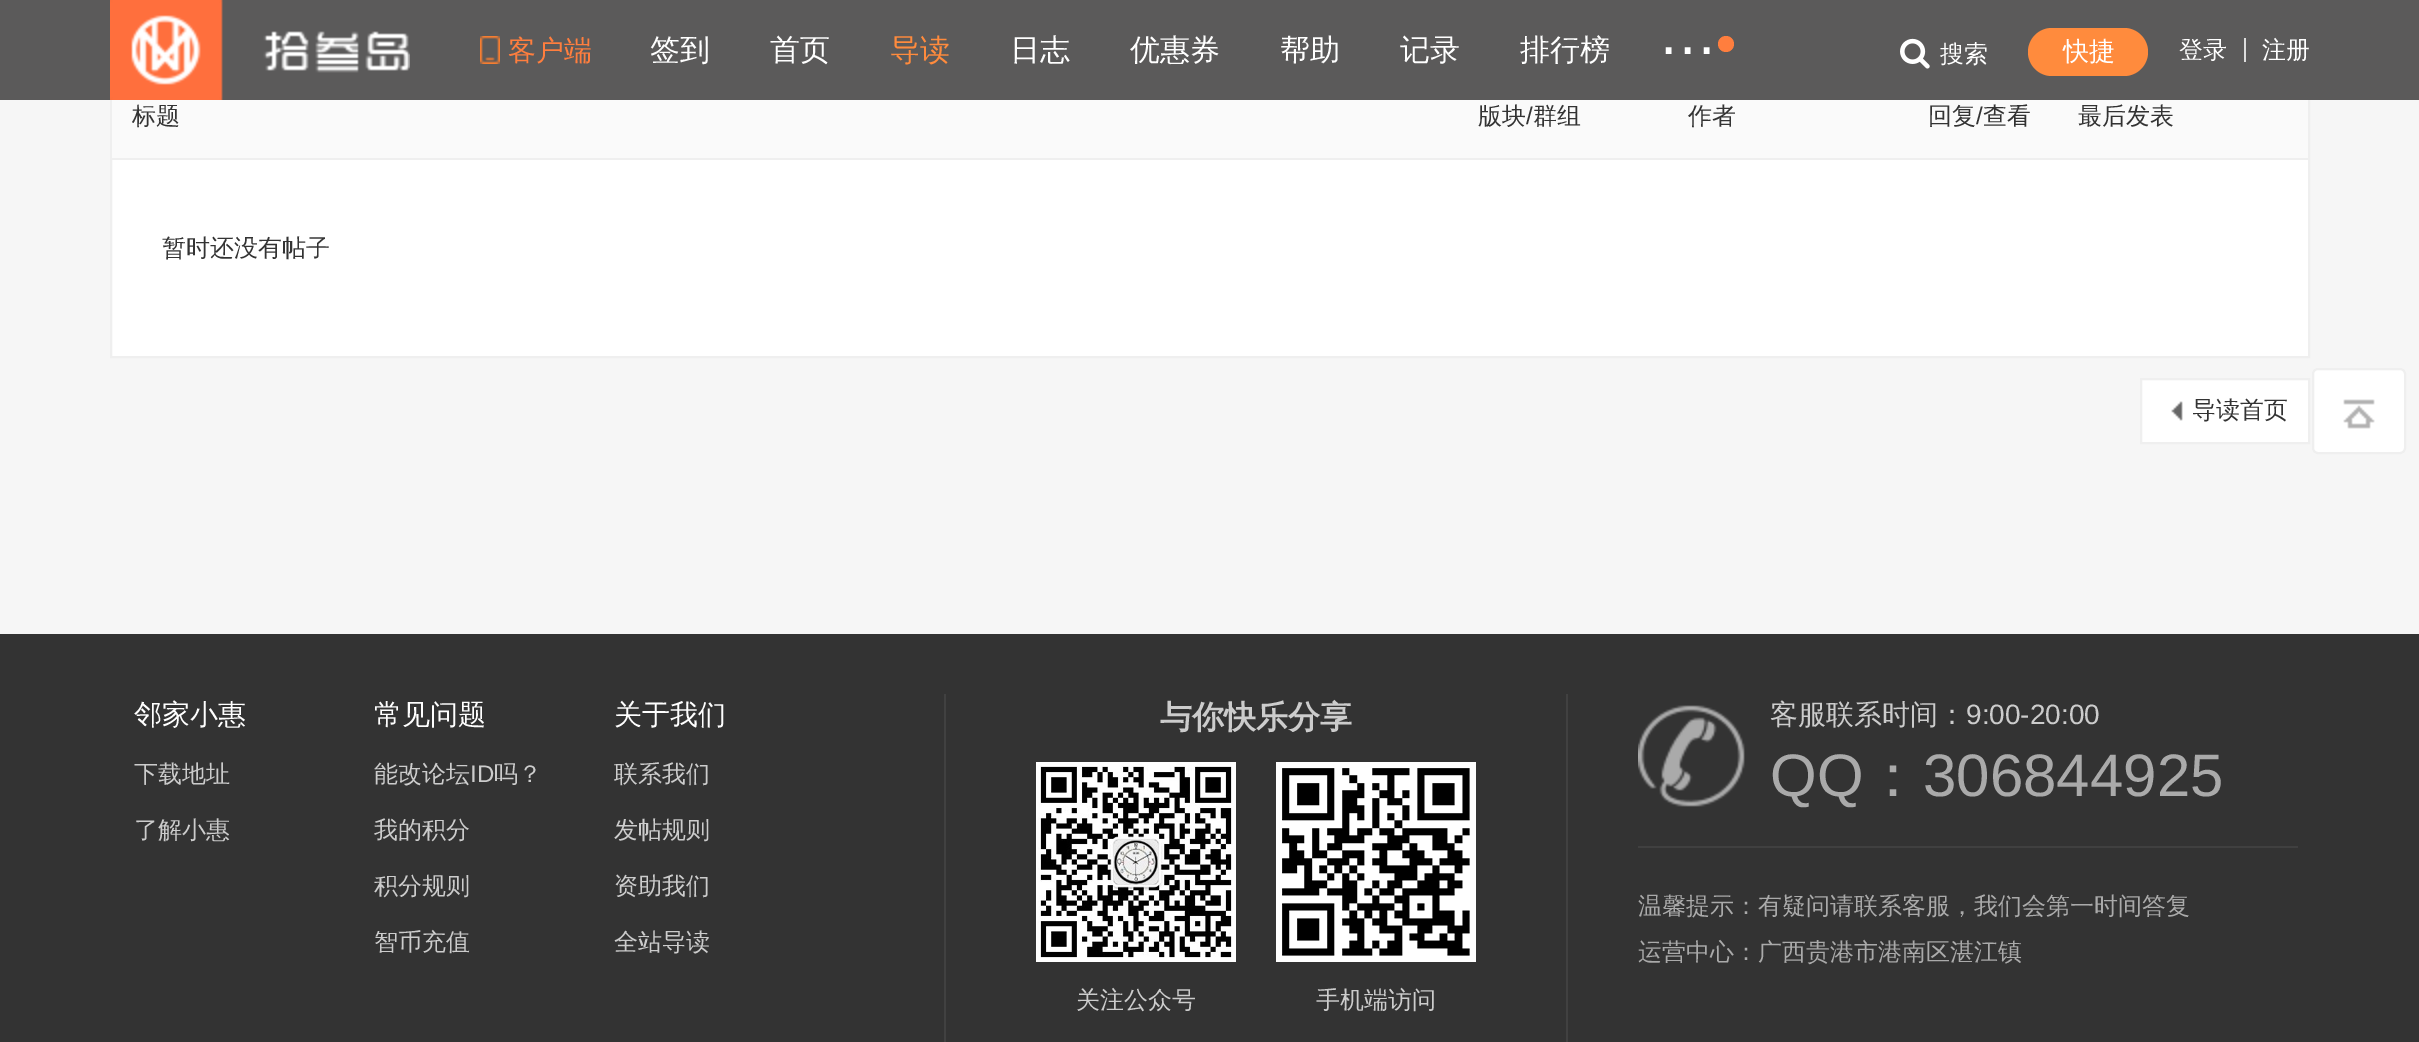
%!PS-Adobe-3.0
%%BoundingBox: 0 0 2419 1042
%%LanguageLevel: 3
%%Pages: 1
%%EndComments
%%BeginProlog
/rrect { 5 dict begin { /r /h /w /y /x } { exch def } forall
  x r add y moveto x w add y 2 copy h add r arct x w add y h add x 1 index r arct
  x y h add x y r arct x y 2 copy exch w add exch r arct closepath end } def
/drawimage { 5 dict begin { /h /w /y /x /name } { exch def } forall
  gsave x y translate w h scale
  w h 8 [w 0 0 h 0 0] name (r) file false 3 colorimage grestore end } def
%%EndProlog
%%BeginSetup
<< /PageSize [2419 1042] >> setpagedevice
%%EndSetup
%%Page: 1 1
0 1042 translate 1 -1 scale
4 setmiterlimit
0.965 setgray
0 0 2419 1042 rectfill
1 setgray
112 160 2196 196 rectfill
0.937 setgray
2 setlinewidth
111 77 2198 280 rectstroke
0.357 0.353 0.353 setrgbcolor
0 0 2419 100 rectfill
(images/1.raw) 110 0 300 100 drawimage
(images/2.raw) 480 36 20 28 drawimage
1 0.494 0.243 setrgbcolor
newpath 1726 44 8 0 360 arc closepath fill
(images/3.raw) 1900 38 30 31 drawimage
1 0.545 0.239 setrgbcolor
2028 28 120 48 24 rrect fill
0.867 setgray
2244 38 2 24 rectfill
0.98 setgray
112 100 2196 58 rectfill
0.937 setgray
112 158 2196 2 rectfill
1 setgray
2142 380 166 62 rectfill
(images/4.raw) 2171 401 12 20 drawimage
0.937 setgray
2141 379 168 64 rectstroke
1 setgray
2312 368 94 86 6 rrect fill
(images/5.raw) 2343 399 32 30 drawimage
0.937 setgray
2313 369 92 84 5 rrect stroke
0.2 setgray
0 634 2419 408 rectfill
0.255 setgray
1566 694 2 348 rectfill
944 694 2 348 rectfill
(images/6.raw) 1036 762 200 200 drawimage
(images/7.raw) 1276 762 200 200 drawimage
0.251 setgray
1638 846 660 2 rectfill
(images/8.raw) 1638 705 107 102 drawimage
/WenQuanYiZenHei-Medium [28 0 0 -28 0 0] selectfont
1 0.494 0.243 setrgbcolor
508 60 moveto (客户端) show
/WenQuanYiZenHei-Medium [30 0 0 -30 0 0] selectfont
1 setgray
650 60 moveto (签到) show
770 60 moveto (首页) show
1 0.545 0.239 setrgbcolor
890 60 moveto (导读) show
1 setgray
1010 60 moveto (日志) show
1130 60 moveto (优惠券) show
1280 60 moveto (帮助) show
1400 60 moveto (记录) show
1520 60 moveto (排行榜) show
/LiberationSans-Regular [62 0 0 -62 0 0] selectfont
1660 54 moveto 2 0 (...) ashow
/WenQuanYiZenHei-Medium [24 0 0 -24 0 0] selectfont
1940 62 moveto (搜索) show
/WenQuanYiZenHei-Medium [26 0 0 -26 0 0] selectfont
2063 60 moveto (快捷) show
/WenQuanYiZenHei-Medium [24 0 0 -24 0 0] selectfont
2179 58 moveto (登录) show
2262 58 moveto (注册) show
0.2 setgray
132 124 moveto (标题) show
1478 124 moveto (版块) show
/LiberationSans-Regular [24 0 0 -24 0 0] selectfont
1526 124 moveto (/) show
/WenQuanYiZenHei-Medium [24 0 0 -24 0 0] selectfont
1533 124 moveto (群组) show
1688 124 moveto (作者) show
1928 124 moveto (回复) show
/LiberationSans-Regular [24 0 0 -24 0 0] selectfont
1976 124 moveto (/) show
/WenQuanYiZenHei-Medium [24 0 0 -24 0 0] selectfont
1983 124 moveto (查看) show
2078 124 moveto (最后发表) show
162 256 moveto (暂时还没有帖子) show
2192 418 moveto (导读首页) show
/WenQuanYiZenHei-Medium [28 0 0 -28 0 0] selectfont
1 setgray
134 724 moveto (邻家小惠) show
/WenQuanYiZenHei-Medium [24 0 0 -24 0 0] selectfont
0.8 setgray
134 782 moveto (下载地址) show
134 838 moveto (了解小惠) show
/WenQuanYiZenHei-Medium [28 0 0 -28 0 0] selectfont
1 setgray
374 724 moveto (常见问题) show
/WenQuanYiZenHei-Medium [24 0 0 -24 0 0] selectfont
0.8 setgray
374 782 moveto (能改论坛) show
/LiberationSans-Regular [24 0 0 -24 0 0] selectfont
470 782 moveto (ID) show
/WenQuanYiZenHei-Medium [24 0 0 -24 0 0] selectfont
494 782 moveto (吗？) show
374 838 moveto (我的积分) show
374 894 moveto (积分规则) show
374 950 moveto (智币充值) show
/WenQuanYiZenHei-Medium [28 0 0 -28 0 0] selectfont
1 setgray
614 724 moveto (关于我们) show
/WenQuanYiZenHei-Medium [24 0 0 -24 0 0] selectfont
0.8 setgray
614 782 moveto (联系我们) show
614 838 moveto (发帖规则) show
614 894 moveto (资助我们) show
614 950 moveto (全站导读) show
/WenQuanYiZenHei-Bold [32 0 0 -32 0 0] selectfont
1160 728 moveto (与你快乐分享) show
/WenQuanYiZenHei-Medium [24 0 0 -24 0 0] selectfont
1076 1008 moveto (关注公众号) show
1316 1008 moveto (手机端访问) show
/WenQuanYiZenHei-Medium [28 0 0 -28 0 0] selectfont
1770 724 moveto (客服联系时间：) show
/LiberationSans-Regular [28 0 0 -28 0 0] selectfont
1966 724 moveto (9:00-20:00) show
/LiberationSans-Regular [60 0 0 -60 0 0] selectfont
0.667 setgray
1770 796 moveto (QQ) show
/WenQuanYiZenHei-Medium [60 0 0 -60 0 0] selectfont
1863 796 moveto (：) show
/LiberationSans-Regular [60 0 0 -60 0 0] selectfont
1923 796 moveto (306844925) show
/WenQuanYiZenHei-Medium [24 0 0 -24 0 0] selectfont
1638 914 moveto (温馨提示：有疑问请联系客服，我们会第一时间答复) show
1638 960 moveto (运营中心：广西贵港市港南区湛江镇) show
showpage
%%EOF
